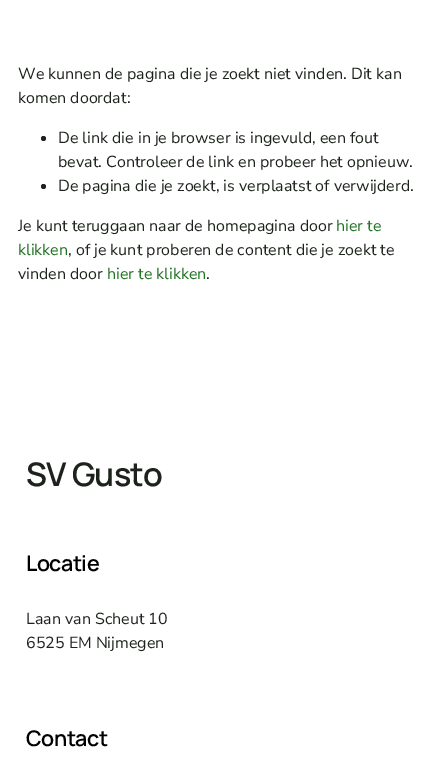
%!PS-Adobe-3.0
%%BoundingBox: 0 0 440 766
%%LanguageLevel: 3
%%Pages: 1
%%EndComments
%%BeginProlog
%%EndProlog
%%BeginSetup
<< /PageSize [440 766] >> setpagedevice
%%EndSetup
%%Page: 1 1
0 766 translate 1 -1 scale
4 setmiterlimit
1 setgray
0 0 440 766 rectfill
0.114 0.137 0.11 setrgbcolor
newpath 43.5 138.5 2.5 0 360 arc closepath fill
newpath 43.5 186.5 2.5 0 360 arc closepath fill
/NunitoSans-Regular [16 0 0 -16 0 0] selectfont
18 79 moveto (We kunnen de pagina die je zoekt niet vinden. Dit kan) show
18 103 moveto (komen doordat:) show
58 143 moveto (De link die in je browser is ingevuld, een fout) show
58 167 moveto (bevat. Controleer de link en probeer het opnieuw.) show
58 191 moveto (De pagina die je zoekt, is verplaatst of verwijderd.) show
18 231 moveto (Je kunt teruggaan naar de homepagina door) show
0.125 0.443 0.133 setrgbcolor
336 231 moveto (hier te) show
18 255 moveto (klikken) show
0.114 0.137 0.11 setrgbcolor
68 255 moveto (, of je kunt proberen de content die je zoekt te) show
18 279 moveto (vinden door) show
0.125 0.443 0.133 setrgbcolor
107 279 moveto (hier te klikken) show
0.114 0.137 0.11 setrgbcolor
206 279 moveto (.) show
/Manrope-SemiBold [32.5 0 0 -32.5 0 0] selectfont
26 486 moveto -0.75 0 (SV Gusto) ashow
/Manrope-SemiBold [21.5 0 0 -21.5 0 0] selectfont
0 setgray
26 571 moveto -0.5 0 (Locatie) ashow
/NunitoSans-Regular [16 0 0 -16 0 0] selectfont
0.114 0.137 0.11 setrgbcolor
26 624 moveto (Laan van Scheut 10) show
26 648 moveto (6525 EM Nijmegen) show
/Manrope-SemiBold [21.5 0 0 -21.5 0 0] selectfont
0 setgray
26 746 moveto -0.5 0 (Contact) ashow
showpage
%%EOF
